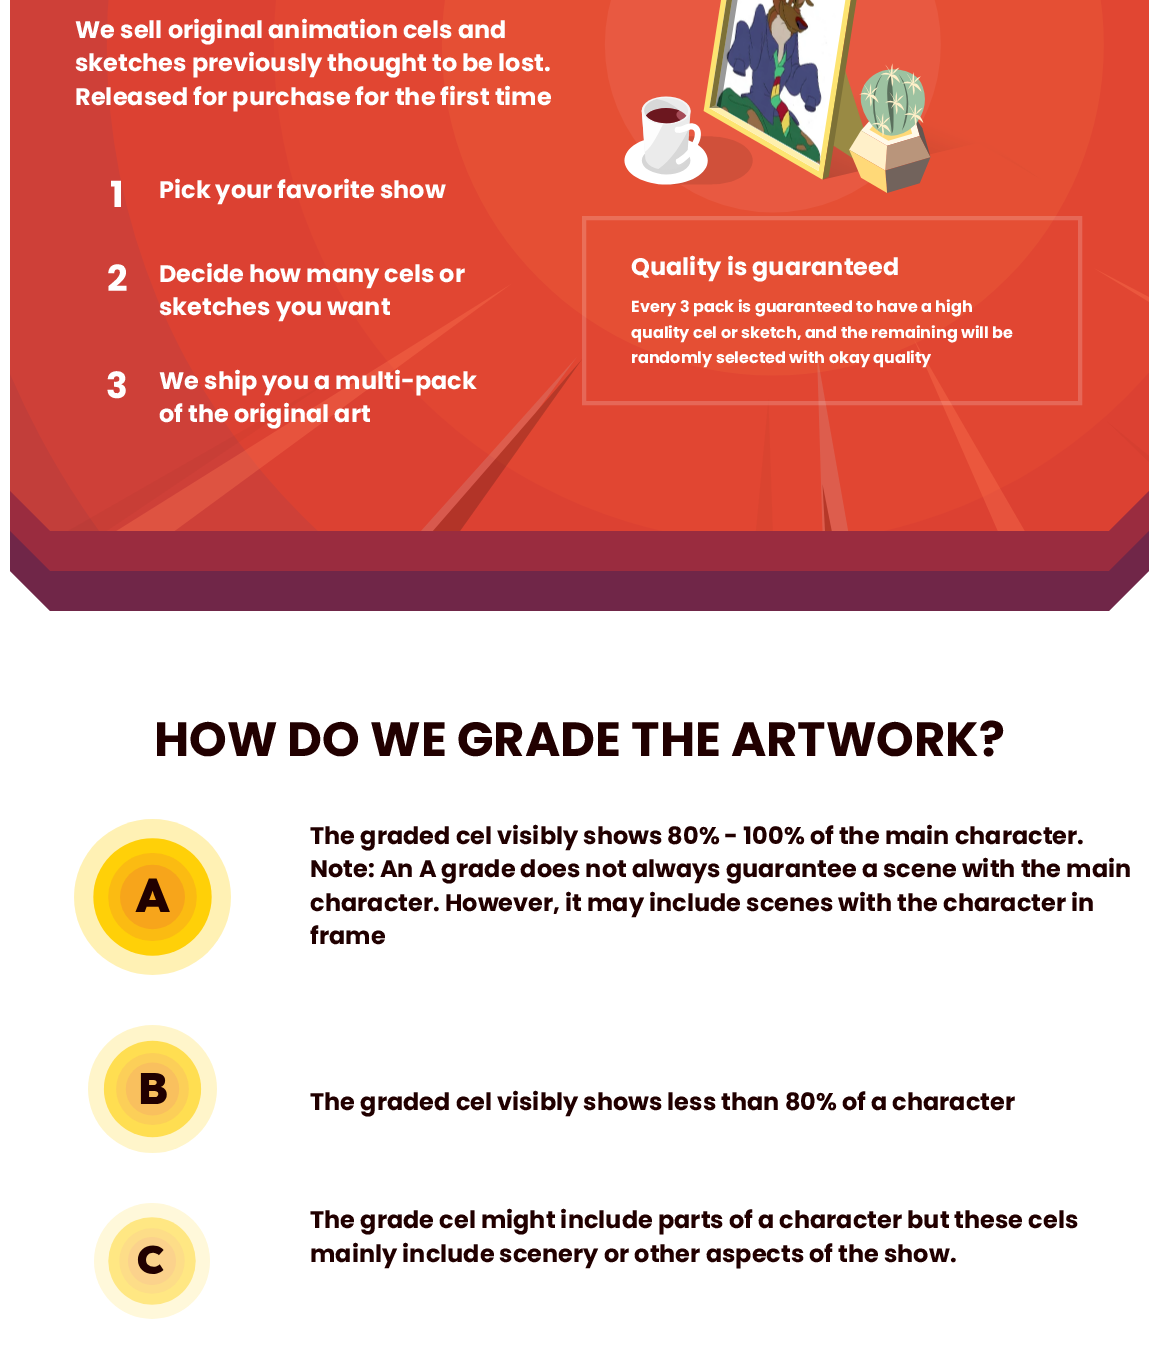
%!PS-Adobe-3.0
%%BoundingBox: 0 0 1159 1372
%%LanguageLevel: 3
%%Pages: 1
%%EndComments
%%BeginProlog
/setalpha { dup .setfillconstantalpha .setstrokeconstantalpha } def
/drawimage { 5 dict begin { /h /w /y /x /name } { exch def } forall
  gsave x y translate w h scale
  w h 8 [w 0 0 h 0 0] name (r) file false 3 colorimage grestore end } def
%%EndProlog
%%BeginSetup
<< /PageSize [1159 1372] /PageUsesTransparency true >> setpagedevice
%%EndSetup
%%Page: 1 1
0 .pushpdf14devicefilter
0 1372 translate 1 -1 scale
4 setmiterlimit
1 setgray
0 0 1159 1372 rectfill
(images/1.raw) 10 0 1139 531 drawimage
0.18 setalpha
4 setlinewidth
584 218 496 185 rectstroke
1 setalpha
0.604 0.173 0.247 setrgbcolor
newpath 1149 491 moveto 1149 571 lineto 1109 531 lineto closepath fill
newpath 10 571 moveto 10 491 lineto 50 531 lineto closepath fill
10 531 1139 40 rectfill
gsave
10 531 1139 40 rectclip
0.439 0.149 0.282 setrgbcolor
newpath 1149 531 moveto 1149 611 lineto 1109 571 lineto closepath fill
newpath 10 611 moveto 10 531 lineto 50 571 lineto closepath fill
grestore
0.439 0.149 0.282 setrgbcolor
newpath 10 571 moveto 1149 571 lineto 1109 611 lineto 50 611 lineto closepath fill
(images/2.raw) 74 819 157 156 drawimage
(images/3.raw) 88 1025 129 128 drawimage
(images/4.raw) 94 1203 116 116 drawimage
/Poppins-Bold [24 0 0 -24 0 0] selectfont
1 setgray
75 38 moveto (We sell original animation cels and) show
75 71 moveto (sketches previously thought to be lost.) show
75 105 moveto (Released for purchase for the first time) show
/Poppins-Bold [36 0 0 -36 0 0] selectfont
110 207 moveto (1) show
/Poppins-Bold [24 0 0 -24 0 0] selectfont
159 198 moveto (Pick your favorite show) show
/Poppins-Bold [36 0 0 -36 0 0] selectfont
107 291 moveto (2) show
/Poppins-Bold [24 0 0 -24 0 0] selectfont
159 282 moveto (Decide how many cels or) show
159 315 moveto (sketches you want) show
/Poppins-Bold [36 0 0 -36 0 0] selectfont
106 398 moveto (3) show
/Poppins-Bold [24 0 0 -24 0 0] selectfont
159 389 moveto (We ship you a multi-pack) show
159 422 moveto (of the original art) show
631 275 moveto (Quality is guaranteed) show
/Poppins-Bold [16 0 0 -16 0 0] selectfont
631 312 moveto (Every 3 pack is guaranteed to have a high) show
631 338 moveto (quality cel or sketch, and the remaining will be) show
631 363 moveto (randomly selected with okay quality) show
/Poppins-Bold [48 0 0 -48 0 0] selectfont
0.129 0 0 setrgbcolor
154 756 moveto (HOW DO WE GRADE THE ARTWORK?) show
/Poppins-Bold [24 0 0 -24 0 0] selectfont
310 844 moveto (The graded cel visibly shows 80% - 100% of the main character.) show
310 877 moveto (Note: An A grade does not always guarantee a scene with the main) show
310 911 moveto (character. However, it may include scenes with the character in) show
310 944 moveto (frame) show
310 1110 moveto (The graded cel visibly shows less than 80% of a character) show
310 1228 moveto (The grade cel might include parts of a character but these cels) show
310 1262 moveto (mainly include scenery or other aspects of the show.) show
.poppdf14devicefilter showpage
%%EOF
